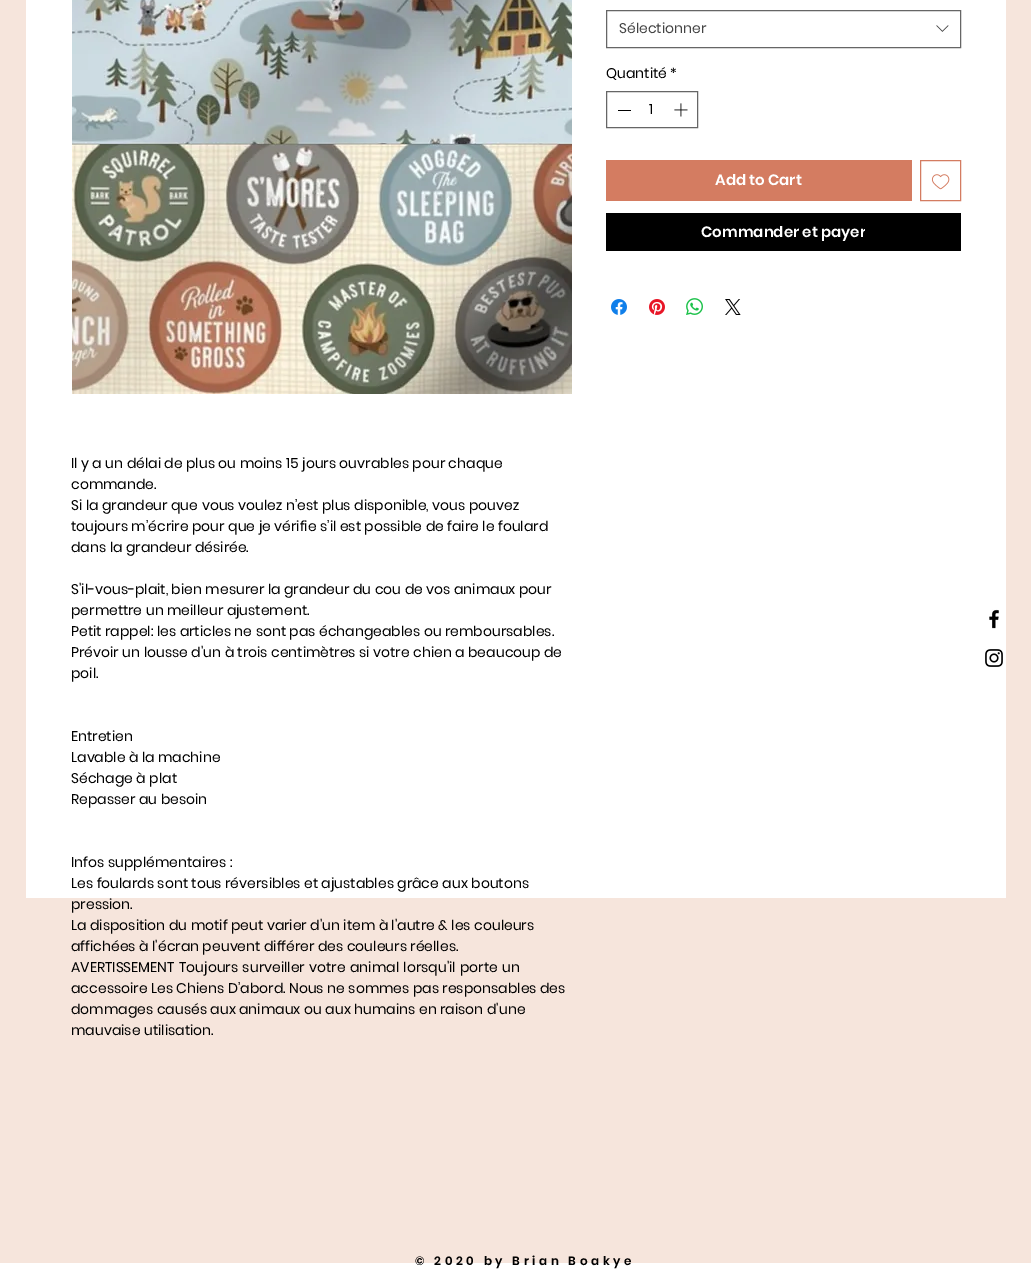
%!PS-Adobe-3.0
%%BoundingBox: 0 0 1031 1270
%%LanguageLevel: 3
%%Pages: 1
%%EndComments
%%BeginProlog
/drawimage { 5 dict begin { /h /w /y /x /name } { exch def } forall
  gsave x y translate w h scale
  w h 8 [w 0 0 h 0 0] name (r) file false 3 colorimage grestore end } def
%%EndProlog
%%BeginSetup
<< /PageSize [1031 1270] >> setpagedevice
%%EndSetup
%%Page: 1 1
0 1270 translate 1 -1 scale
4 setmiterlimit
1 setgray
0 0 1031 1270 rectfill
0.965 0.898 0.863 setrgbcolor
0 0 1031 1263 rectfill
1 setgray
26 0 980 898 rectfill
0.4 setgray
606.5 10.5 354 37 rectstroke
(images/1.raw) 936 25 13 7 drawimage
606.5 91.5 91 36 rectstroke
0 setgray
618 110 13 1 rectfill
(images/2.raw) 674 103 14 14 drawimage
0.831 0.486 0.38 setrgbcolor
606 160 306 41 rectfill
920.5 160.5 40 40 rectstroke
(images/3.raw) 931 174 19 16 drawimage
0 setgray
606 213 355 38 rectfill
(images/4.raw) 611 299 16 16 drawimage
(images/5.raw) 649 299 16 16 drawimage
(images/6.raw) 686 298 17 17 drawimage
(images/7.raw) 725 299 16 16 drawimage
(images/8.raw) 72 0 500 394 drawimage
(images/9.raw) 989 609 10 20 drawimage
(images/10.raw) 985 649 18 18 drawimage
/Poppins-Regular [14 0 0 -14 0 0] selectfont
0.267 setgray
619 33 moveto (Sélectionner) show
0 setgray
606 78 moveto (Quantité) show
670 78 moveto (*) show
649 114 moveto (1) show
/Poppins-SemiBold [15 0 0 -15 0 0] selectfont
1 setgray
715 185 moveto (Add to Cart) show
gsave
701 223 164 18 rectclip
701 237 moveto (Commander et payer) show
grestore
/Poppins-Regular [14 0 0 -14 0 0] selectfont
0 setgray
71 468 moveto (Il y a un délai de plus ou moins 15 jours ouvrables pour chaque) show
71 489 moveto (commande.) show
71 510 moveto (Si la grandeur que vous voulez n’est plus disponible, vous pouvez) show
71 531 moveto (toujours m’écrire pour que je vérifie s’il est possible de faire le foulard) show
71 552 moveto (dans la grandeur désirée.) show
71 594 moveto (S'il-vous-plait, bien mesurer la grandeur du cou de vos animaux pour) show
71 615 moveto (permettre un meilleur ajustement.) show
71 636 moveto (Petit rappel: les articles ne sont pas échangeables ou remboursables.) show
71 657 moveto (Prévoir un lousse d'un à trois centimètres si votre chien a beaucoup de) show
71 678 moveto (poil.) show
71 741 moveto (Entretien) show
71 762 moveto (Lavable à la machine) show
71 783 moveto (Séchage à plat) show
71 804 moveto (Repasser au besoin) show
71 867 moveto (Infos supplémentaires :) show
71 888 moveto (Les foulards sont tous réversibles et ajustables grâce aux boutons) show
71 909 moveto (pression.) show
71 930 moveto (La disposition du motif peut varier d'un item à l'autre & les couleurs) show
71 951 moveto (affichées à l'écran peuvent différer des couleurs réelles.) show
71 972 moveto 1 0 32 (AVERTISSEMENT Toujours surveiller votre animal lorsqu'il porte un) widthshow
71 993 moveto (accessoire Les Chiens D’abord. Nous ne sommes pas responsables des) show
71 1014 moveto (dommages causés aux animaux ou aux humains en raison d'une) show
71 1035 moveto (mauvaise utilisation.) show
/Poppins-SemiBold [12 0 0 -12 0 0] selectfont
415 1265 moveto 3.6 0 (© 2020 by Brian Boakye) ashow
showpage
%%EOF
